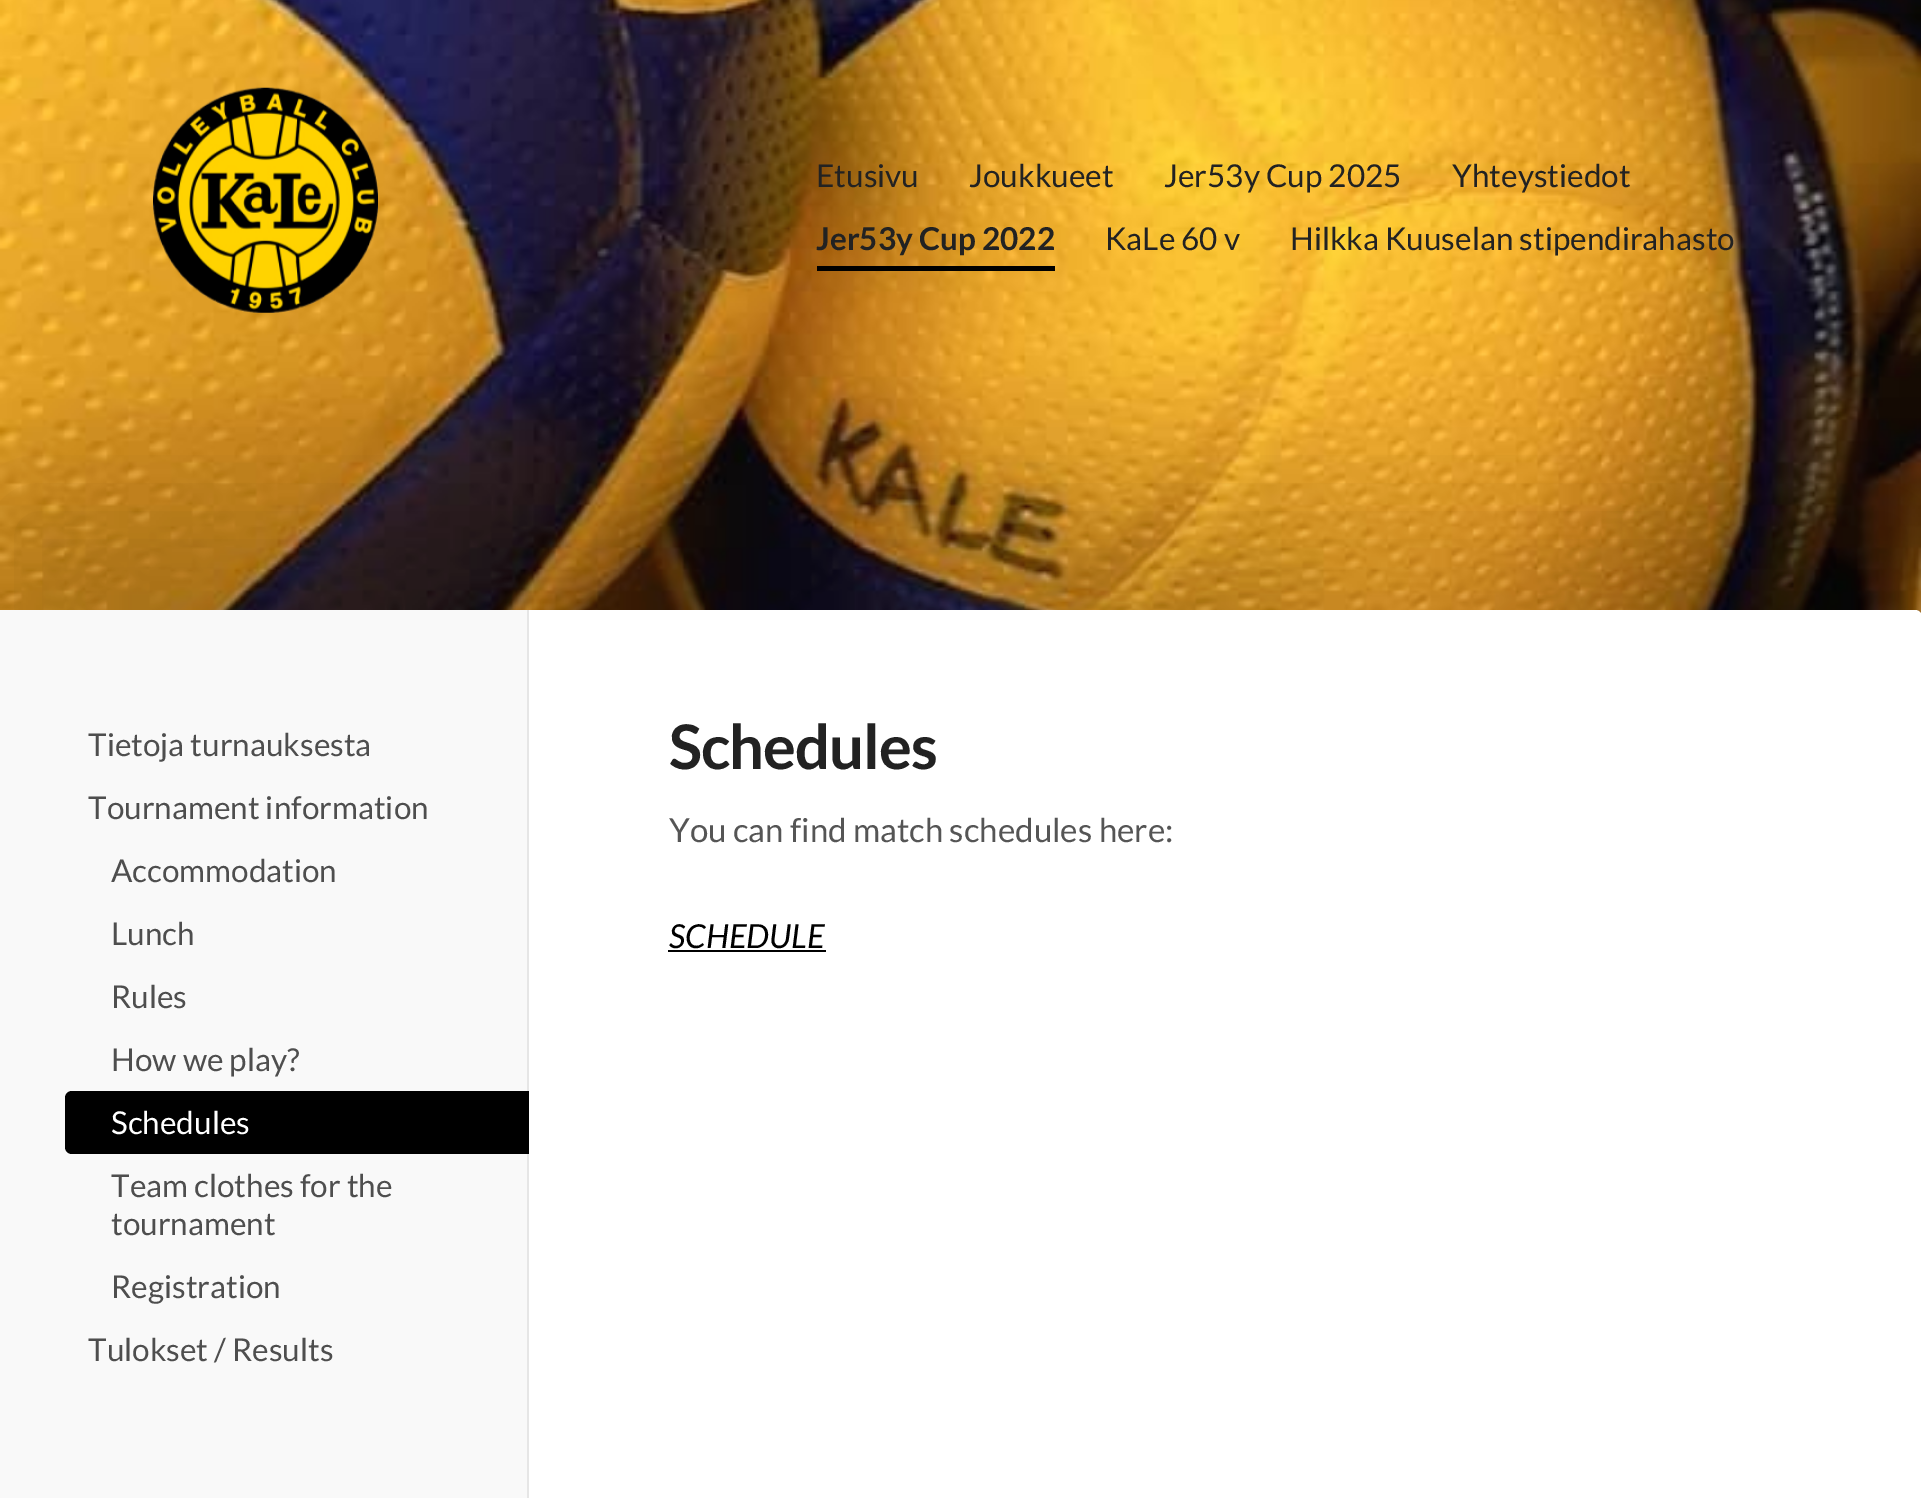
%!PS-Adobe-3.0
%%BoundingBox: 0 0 1921 1498
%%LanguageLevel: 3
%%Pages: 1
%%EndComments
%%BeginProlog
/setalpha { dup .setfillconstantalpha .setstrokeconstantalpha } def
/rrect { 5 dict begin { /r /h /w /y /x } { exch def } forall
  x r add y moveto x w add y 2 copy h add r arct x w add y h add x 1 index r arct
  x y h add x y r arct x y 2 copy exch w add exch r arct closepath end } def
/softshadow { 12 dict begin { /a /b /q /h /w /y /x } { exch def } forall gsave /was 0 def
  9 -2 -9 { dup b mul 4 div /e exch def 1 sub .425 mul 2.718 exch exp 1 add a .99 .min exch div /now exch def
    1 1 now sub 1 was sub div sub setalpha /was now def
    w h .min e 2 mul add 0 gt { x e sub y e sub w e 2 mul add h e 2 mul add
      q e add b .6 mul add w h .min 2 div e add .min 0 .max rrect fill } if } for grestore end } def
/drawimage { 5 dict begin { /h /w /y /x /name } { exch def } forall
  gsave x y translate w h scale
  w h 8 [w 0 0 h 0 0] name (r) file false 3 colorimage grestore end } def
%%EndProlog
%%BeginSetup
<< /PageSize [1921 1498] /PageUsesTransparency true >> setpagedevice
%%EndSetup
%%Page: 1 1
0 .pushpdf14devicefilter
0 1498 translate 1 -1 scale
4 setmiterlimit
1 setgray
0 0 1921 1498 rectfill
(images/1.raw) 0 0 1921 614 drawimage
(images/2.raw) 153 87 225 226 drawimage
0 setgray
817 266 238 5 rectfill
0 497 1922 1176 7 56 0.1 softshadow
1 setgray
0 610 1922 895 7 rrect fill
0.976 setgray
0 610 527 888 rectfill
0.902 setgray
527 610 2 888 rectfill
0 setgray
newpath 72 1091 moveto 529 1091 lineto 529 1154 lineto 72 1154 lineto 68 1154 65 1151 65 1147 curveto 65 1098 lineto 65 1094 68 1091 72 1091 curveto closepath fill
668 950 158 2 rectfill
/Lato-Regular [31.5 0 0 -31.5 0 0] selectfont
0.133 setgray
816 187 moveto (Etusivu) show
969 187 moveto (Joukkueet) show
1164 187 moveto (Jer53y Cup 2025) show
1452 187 moveto (Yhteystiedot) show
/Lato-Bold [31.5 0 0 -31.5 0 0] selectfont
816 250 moveto (Jer53y Cup 2022) show
/Lato-Regular [31.5 0 0 -31.5 0 0] selectfont
1105 250 moveto (KaLe 60 v) show
1290 250 moveto (Hilkka Kuuselan stipendirahasto) show
0.306 setgray
88 756 moveto (Tietoja turnauksesta) show
88 819 moveto (Tournament information) show
111 882 moveto (Accommodation) show
111 945 moveto (Lunch) show
111 1008 moveto (Rules) show
111 1071 moveto (How we play?) show
1 setgray
111 1134 moveto (Schedules) show
0.306 setgray
111 1197 moveto (Team clothes for the) show
111 1235 moveto (tournament) show
111 1298 moveto (Registration) show
88 1361 moveto (Tulokset / Results) show
/Lato-Bold [61.5 0 0 -61.5 0 0] selectfont
0.133 setgray
669 769 moveto -1 0 (Schedules) ashow
/Lato-Regular [33.1 0 0 -33.1 0 0] selectfont
0.333 setgray
669 842 moveto (You can find match schedules here:) show
/Lato-Italic [33.1 0 0 -33.1 0 0] selectfont
0 setgray
669 948 moveto (SCHEDULE) show
.poppdf14devicefilter showpage
%%EOF
